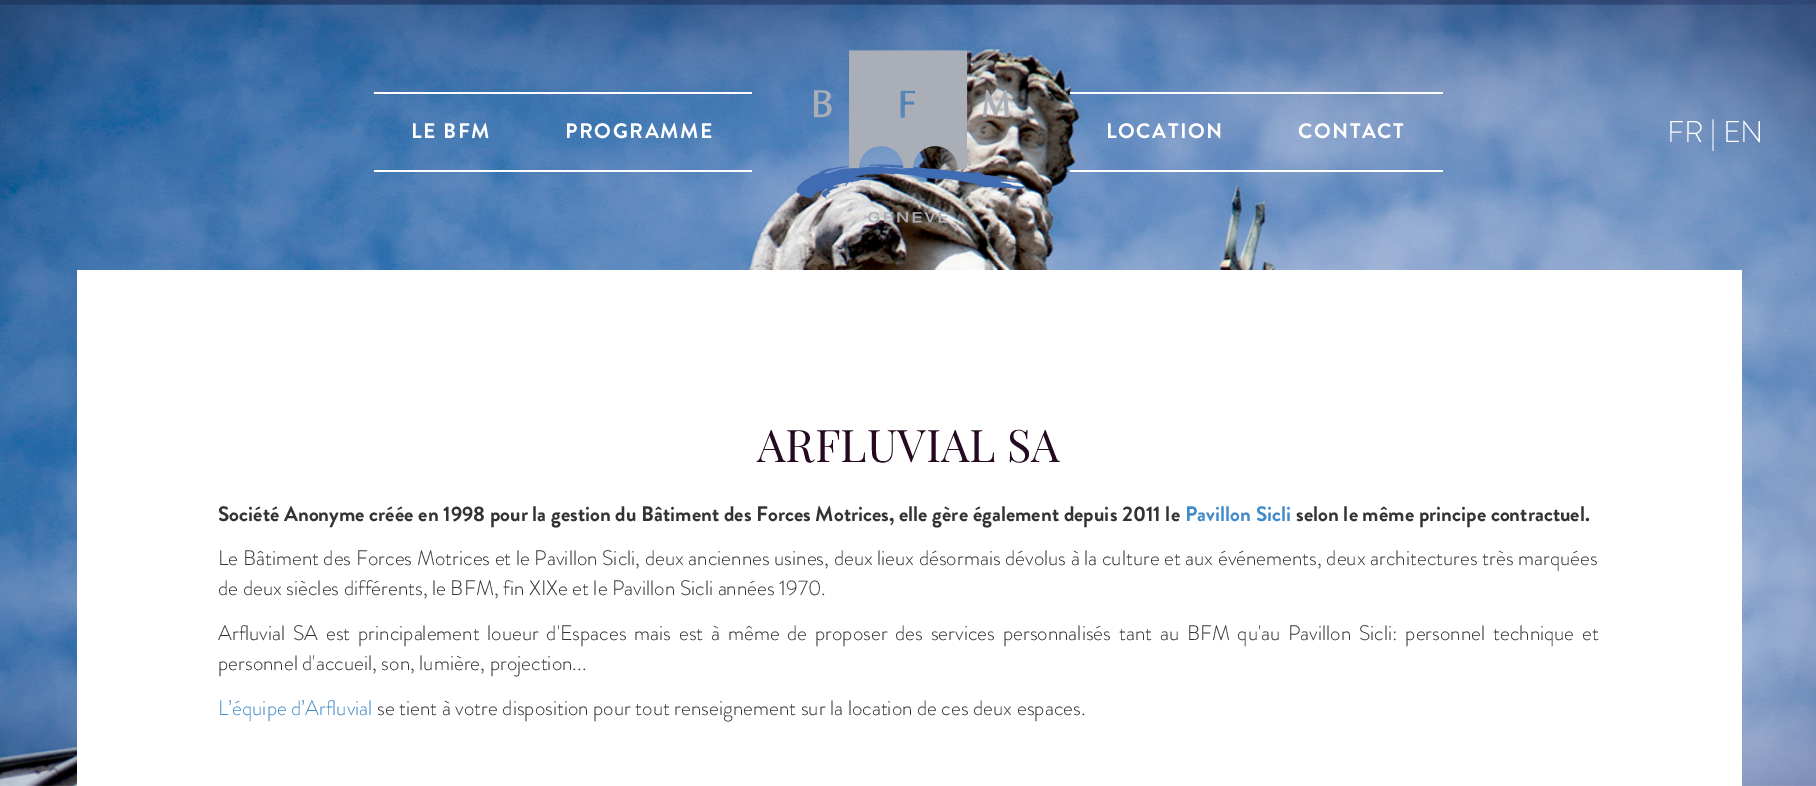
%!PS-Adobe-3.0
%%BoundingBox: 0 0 1816 786
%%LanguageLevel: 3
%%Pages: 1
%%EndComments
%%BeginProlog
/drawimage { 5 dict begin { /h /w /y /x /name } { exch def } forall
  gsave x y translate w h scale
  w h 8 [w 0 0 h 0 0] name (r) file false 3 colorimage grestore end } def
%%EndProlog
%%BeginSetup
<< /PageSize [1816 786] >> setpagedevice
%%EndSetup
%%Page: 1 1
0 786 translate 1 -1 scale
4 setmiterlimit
1 setgray
0 0 1816 786 rectfill
(images/1.raw) 0 0 1816 786 drawimage
374 92 378 2 rectfill
374 170 378 2 rectfill
(images/2.raw) 796 50 229 173 drawimage
1070 92 373 2 rectfill
1070 170 373 2 rectfill
77 270 1665 516 rectfill
/BrandonGrotesque-Bold [21 0 0 -21 0 0] selectfont
411 138 moveto 1.5 0 (LE BFM) ashow
565 138 moveto 1.5 0 (PROGRAMME) ashow
1106 138 moveto 1.5 0 (LOCATION) ashow
1298 138 moveto 1.5 0 (CONTACT) ashow
/BrandonGrotesque-Light [30 0 0 -30 0 0] selectfont
1667 142 moveto (FR | EN) show
/PlayfairDisplay-Regular [45 0 0 -45 0 0] selectfont
0.141 0.035 0.125 setrgbcolor
757 462 moveto (ARFLUVIAL SA) show
/BrandonGrotesque-Bold [21 0 0 -21 0 0] selectfont
0.2 setgray
218 521 moveto (Société Anonyme créée en 1998 pour la gestion du Bâtiment des Forces Motrices, elle gère également depuis 2011 le) show
0.259 0.545 0.792 setrgbcolor
1185 521 moveto (Pavillon Sicli) show
0.2 setgray
1296 521 moveto (selon le même principe contractuel.) show
/BrandonGrotesque-Light [21 0 0 -21 0 0] selectfont
218 565 moveto (Le Bâtiment des Forces Motrices et le Pavillon Sicli, deux anciennes usines, deux lieux désormais dévolus à la culture et aux événements, deux architectures très marquées) show
218 595 moveto (de deux siècles différents, le BFM, fin XIXe et le Pavillon Sicli années 1970.) show
218 640 moveto 3.2 0 32 (Arfluvial SA est principalement loueur d'Espaces mais est à même de proposer des services personnalisés tant au BFM qu'au Pavillon Sicli: personnel technique et) widthshow
218 670 moveto (personnel d'accueil, son, lumière, projection...) show
0.259 0.545 0.792 setrgbcolor
218 715 moveto (L’équipe d’Arfluvial) show
0.2 setgray
377 715 moveto (se tient à votre disposition pour tout renseignement sur la location de ces deux espaces.) show
showpage
%%EOF
